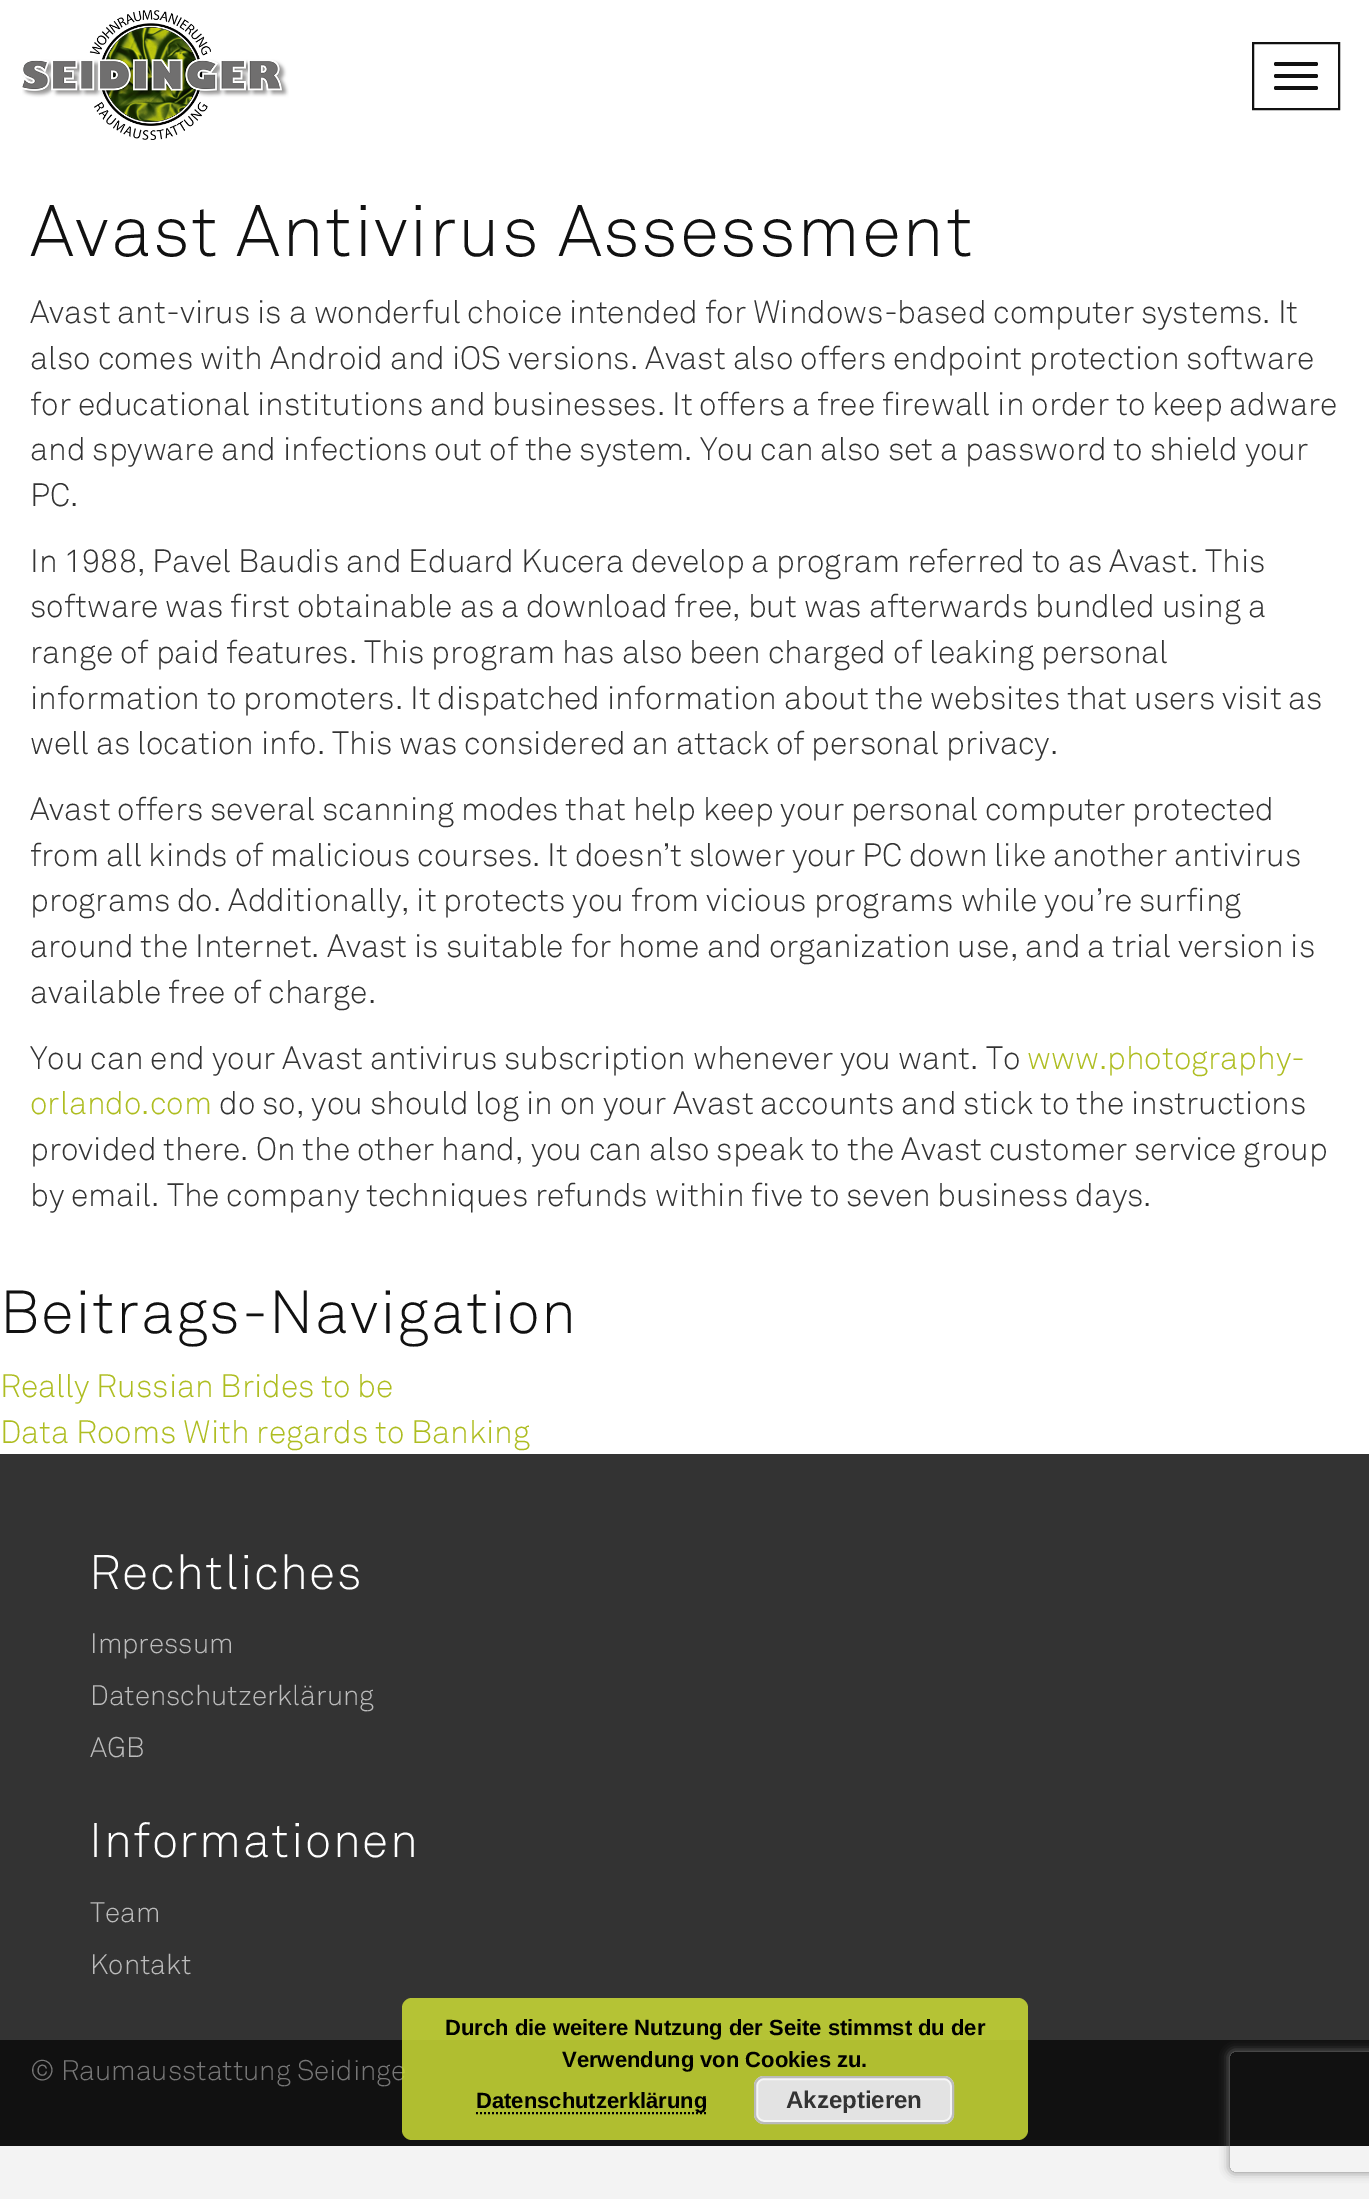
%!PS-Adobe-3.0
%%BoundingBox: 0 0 1369 2199
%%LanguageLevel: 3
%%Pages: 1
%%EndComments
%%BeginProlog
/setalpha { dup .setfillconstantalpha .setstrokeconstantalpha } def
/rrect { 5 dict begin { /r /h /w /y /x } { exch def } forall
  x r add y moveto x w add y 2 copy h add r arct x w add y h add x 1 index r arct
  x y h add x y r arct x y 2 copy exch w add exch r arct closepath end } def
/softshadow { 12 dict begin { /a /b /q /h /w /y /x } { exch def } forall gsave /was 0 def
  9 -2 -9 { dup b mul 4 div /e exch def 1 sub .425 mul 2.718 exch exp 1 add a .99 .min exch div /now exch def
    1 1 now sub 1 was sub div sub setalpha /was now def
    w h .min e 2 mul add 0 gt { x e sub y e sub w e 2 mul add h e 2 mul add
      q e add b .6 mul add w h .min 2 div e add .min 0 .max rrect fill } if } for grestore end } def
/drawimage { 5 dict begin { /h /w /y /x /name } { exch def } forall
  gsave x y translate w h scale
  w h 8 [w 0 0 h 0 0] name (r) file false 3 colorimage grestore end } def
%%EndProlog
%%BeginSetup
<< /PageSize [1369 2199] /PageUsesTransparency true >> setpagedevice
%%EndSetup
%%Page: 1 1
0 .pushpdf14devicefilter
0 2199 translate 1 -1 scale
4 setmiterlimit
0.953 setgray
0 0 1369 2199 rectfill
1 setgray
0 0 1369 1454 rectfill
(images/1.raw) 22 10 267 130 drawimage
0.067 setgray
2 setlinewidth
1253 43 86 66 rectstroke
1274 62 44 4 2 rrect fill
1274 74 44 4 2 rrect fill
1274 86 44 4 2 rrect fill
0.2 setgray
0 1454 1369 586 rectfill
0.067 setgray
0 2040 1369 106 rectfill
gsave
newpath 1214 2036 moveto 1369 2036 lineto 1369 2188 lineto 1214 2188 lineto closepath 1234 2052 moveto 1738 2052 lineto 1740 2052 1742 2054 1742 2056 curveto 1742 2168 lineto 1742 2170 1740 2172 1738 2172 curveto 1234 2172 lineto 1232 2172 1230 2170 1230 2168 curveto 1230 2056 lineto 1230 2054 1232 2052 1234 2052 curveto closepath eoclip newpath
0.502 setgray
1230 2052 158 120 4 5 1 softshadow
grestore
/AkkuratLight-Light [72 0 0 -72 0 0] selectfont
30 256 moveto 1.6 0 (Avast Antivirus Assessment) ashow
/AkkuratLight-Light [32 0 0 -32 0 0] selectfont
0.2 setgray
30 323 moveto (Avast ant-virus is a wonderful choice intended for Windows-based computer systems. It) show
30 369 moveto (also comes with Android and iOS versions. Avast also offers endpoint protection software) show
30 415 moveto (for educational institutions and businesses. It offers a free firewall in order to keep adware) show
30 460 moveto (and spyware and infections out of the system. You can also set a password to shield your) show
30 506 moveto (PC.) show
30 572 moveto (In 1988, Pavel Baudis and Eduard Kucera develop a program referred to as Avast. This) show
30 617 moveto (software was first obtainable as a download free, but was afterwards bundled using a) show
30 663 moveto (range of paid features. This program has also been charged of leaking personal) show
30 709 moveto (information to promoters. It dispatched information about the websites that users visit as) show
30 754 moveto (well as location info. This was considered an attack of personal privacy.) show
30 820 moveto (Avast offers several scanning modes that help keep your personal computer protected) show
30 866 moveto (from all kinds of malicious courses. It doesn’t slower your PC down like another antivirus) show
30 911 moveto (programs do. Additionally, it protects you from vicious programs while you’re surfing) show
30 957 moveto (around the Internet. Avast is suitable for home and organization use, and a trial version is) show
30 1003 moveto (available free of charge.) show
30 1069 moveto (You can end your Avast antivirus subscription whenever you want. To) show
0.682 0.741 0.129 setrgbcolor
1027 1069 moveto (www.photography-) show
30 1114 moveto (orlando.com) show
0.2 setgray
219 1114 moveto (do so, you should log in on your Avast accounts and stick to the instructions) show
30 1160 moveto (provided there. On the other hand, you can also speak to the Avast customer service group) show
30 1206 moveto (by email. The company techniques refunds within five to seven business days.) show
/AkkuratLight-Light [60 0 0 -60 0 0] selectfont
0.067 setgray
0 1333 moveto 1.6 0 (Beitrags-Navigation) ashow
/AkkuratLight-Light [32 0 0 -32 0 0] selectfont
0.682 0.741 0.129 setrgbcolor
0 1397 moveto (Really Russian Brides to be) show
0 1443 moveto (Data Rooms With regards to Banking) show
/AkkuratLight-Light [48 0 0 -48 0 0] selectfont
1 setgray
89 1589 moveto 1.6 0 (Rechtliches) ashow
/AkkuratLight-Light [28 0 0 -28 0 0] selectfont
0.733 setgray
90 1653 moveto (Impressum) show
90 1705 moveto (Datenschutzerklärung) show
90 1757 moveto (AGB) show
/AkkuratLight-Light [48 0 0 -48 0 0] selectfont
1 setgray
89 1857 moveto 1.6 0 (Informationen) ashow
/AkkuratLight-Light [28 0 0 -28 0 0] selectfont
0.733 setgray
90 1922 moveto (Team) show
90 1974 moveto (Kontakt) show
0.467 setgray
30 2080 moveto (© Raumausstattung Seidinge) show
0.85 setalpha
0.8 0.863 0.208 setrgbcolor
402 1998 626 142 10 rrect fill
/LiberationSans-Bold [22 0 0 -22 0 0] selectfont
1 setalpha
0 setgray
445 2035 moveto (Durch die weitere Nutzung der Seite stimmst du der) show
562 2067 moveto (Verwendung von Cookies zu.) show
[2 2] 0 setdash
newpath 476 2113 moveto 708 2113 lineto stroke
476 2108 moveto (Datenschutzerklärung) show
0.89 setgray
754 2076 200 48 10 rrect fill
0.965 setgray
[] 0 setdash
757 2079 194 42 7 rrect stroke
0.733 setgray
755 2077 198 46 9 rrect stroke
/LiberationSans-Bold [24 0 0 -24 0 0] selectfont
0.2 setgray
786 2108 moveto (Akzeptieren) show
.poppdf14devicefilter showpage
%%EOF
